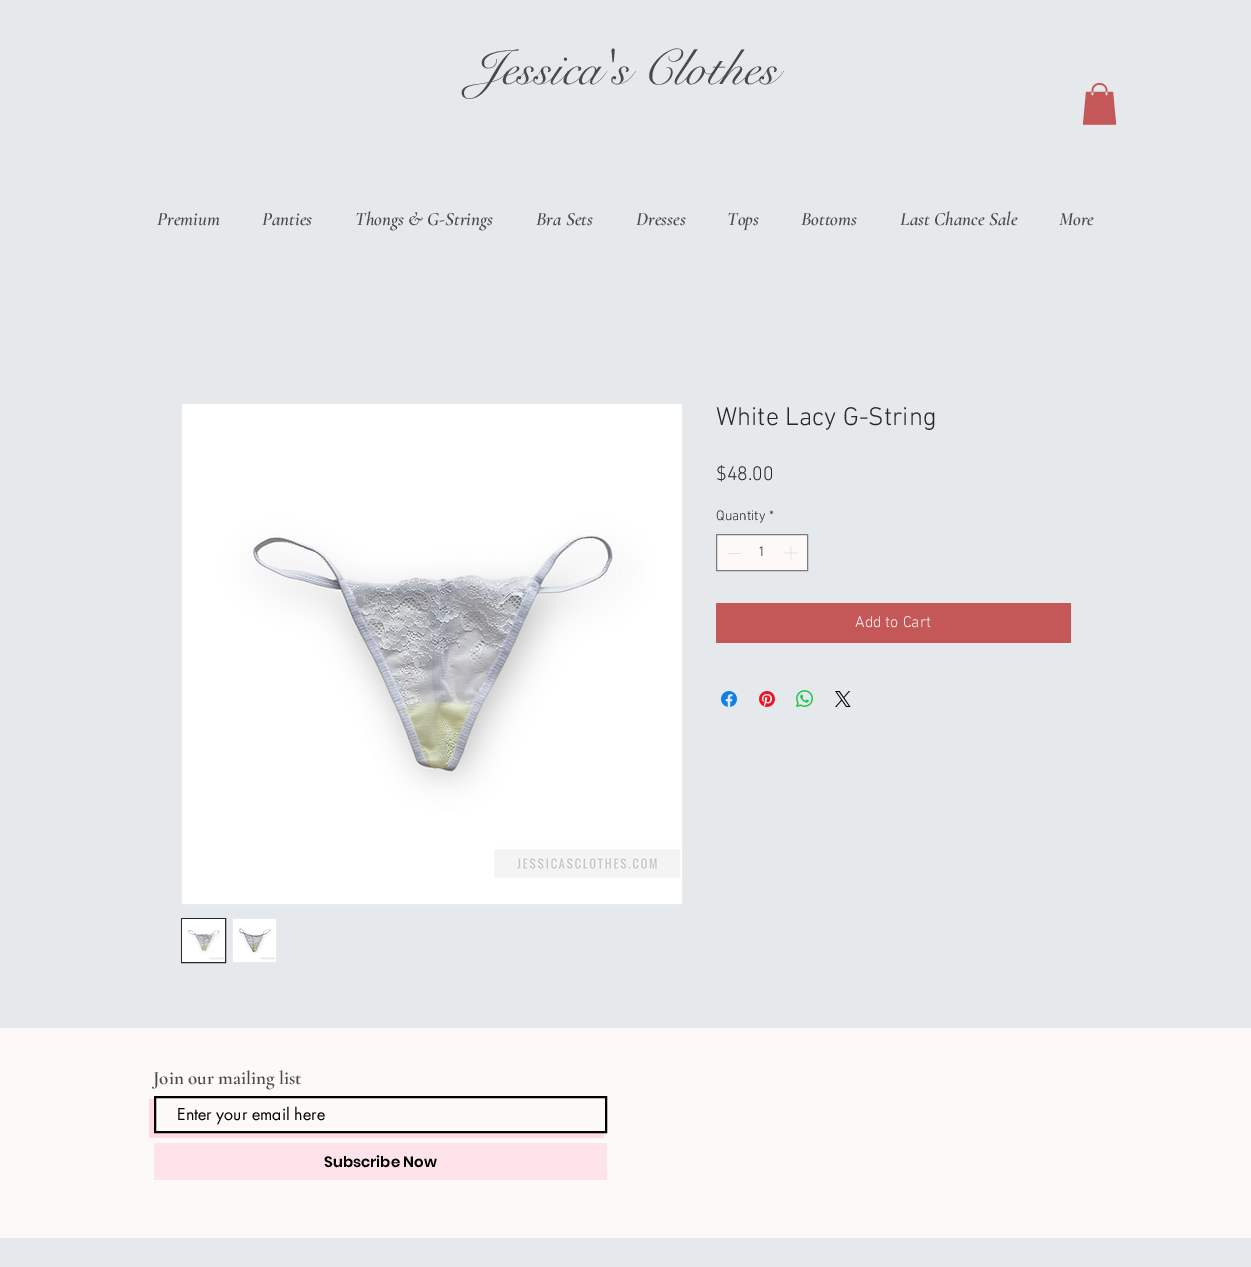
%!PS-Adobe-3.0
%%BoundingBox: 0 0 1251 1267
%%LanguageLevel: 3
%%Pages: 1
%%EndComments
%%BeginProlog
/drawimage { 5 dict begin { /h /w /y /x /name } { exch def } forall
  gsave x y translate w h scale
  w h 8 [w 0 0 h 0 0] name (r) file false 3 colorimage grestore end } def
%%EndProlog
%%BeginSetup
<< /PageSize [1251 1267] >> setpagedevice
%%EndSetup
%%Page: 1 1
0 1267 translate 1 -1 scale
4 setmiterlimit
0.902 0.914 0.922 setrgbcolor
0 0 1251 1267 rectfill
(images/1.raw) 1082 83 35 42 drawimage
0.925 0.922 0.922 setrgbcolor
181.5 403.5 501 501 rectstroke
(images/2.raw) 182 404 500 500 drawimage
0.157 setgray
181.5 918.5 44 44 rectstroke
(images/3.raw) 182 919 43 43 drawimage
0.925 0.922 0.922 setrgbcolor
232.5 918.5 44 44 rectstroke
(images/4.raw) 233 919 43 43 drawimage
0.988 0.976 0.973 setrgbcolor
newpath 716.5 534.5 moveto 807.5 534.5 lineto 807.5 570.5 lineto 716.5 570.5 lineto closepath gsave fill grestore
0.49 0.486 0.482 setrgbcolor
stroke
0.886 0.878 0.878 setrgbcolor
728 553 13 1 rectfill
(images/5.raw) 784 546 14 14 drawimage
0.769 0.345 0.345 setrgbcolor
716 603 355 40 rectfill
(images/6.raw) 721 691 16 16 drawimage
(images/7.raw) 759 691 16 16 drawimage
(images/8.raw) 796 690 17 17 drawimage
(images/9.raw) 835 691 16 16 drawimage
0.988 0.976 0.973 setrgbcolor
0 1028 1251 210 rectfill
1 0.855 0.894 setrgbcolor
newpath 149 1099 moveto 149 1138 lineto 604 1138 lineto 604 1133 lineto 154 1133 lineto 154 1099 lineto closepath fill
0 setgray
2 setlinewidth
155 1097 451 35 rectstroke
0.996 0.89 0.918 setrgbcolor
154 1143 453 37 rectfill
/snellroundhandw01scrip-Regular [50 0 0 -50 0 0] selectfont
0.286 setgray
471 84 moveto (Jessica's Clothes) show
/CormorantGaramond-SemiBoldItalic [19 0 0 -19 0 0] selectfont
157 225 moveto (Premium) show
262 225 moveto (Panties) show
355 225 moveto (Thongs & G-Strings) show
536 225 moveto (Bra Sets) show
636 225 moveto (Dresses) show
727 225 moveto (Tops) show
801 225 moveto (Bottoms) show
900 225 moveto (Last Chance Sale) show
1059 225 moveto (More) show
/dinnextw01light-Light [26 0 0 -26 0 0] selectfont
0.157 setgray
716 425 moveto (White Lacy G-String) show
/dinnextw01light-Light [20 0 0 -20 0 0] selectfont
716 480 moveto ($48.00) show
/dinnextw01light-Light [14 0 0 -14 0 0] selectfont
716 520 moveto (Quantity) show
769 520 moveto (*) show
758 556 moveto (1) show
/dinnextw01light-Light [16 0 0 -16 0 0] selectfont
0.988 0.976 0.973 setrgbcolor
855 627 moveto (Add to Cart) show
/CormorantGaramond-SemiBold [19 0 0 -19 0 0] selectfont
0.286 setgray
153 1084 moveto (Join our mailing list) show
/futura-Regular [16 0 0 -16 0 0] selectfont
0 setgray
177 1120 moveto (Enter your email here) show
/Poppins-SemiBold [15 0 0 -15 0 0] selectfont
324 1167 moveto (Subscribe Now) show
showpage
%%EOF
